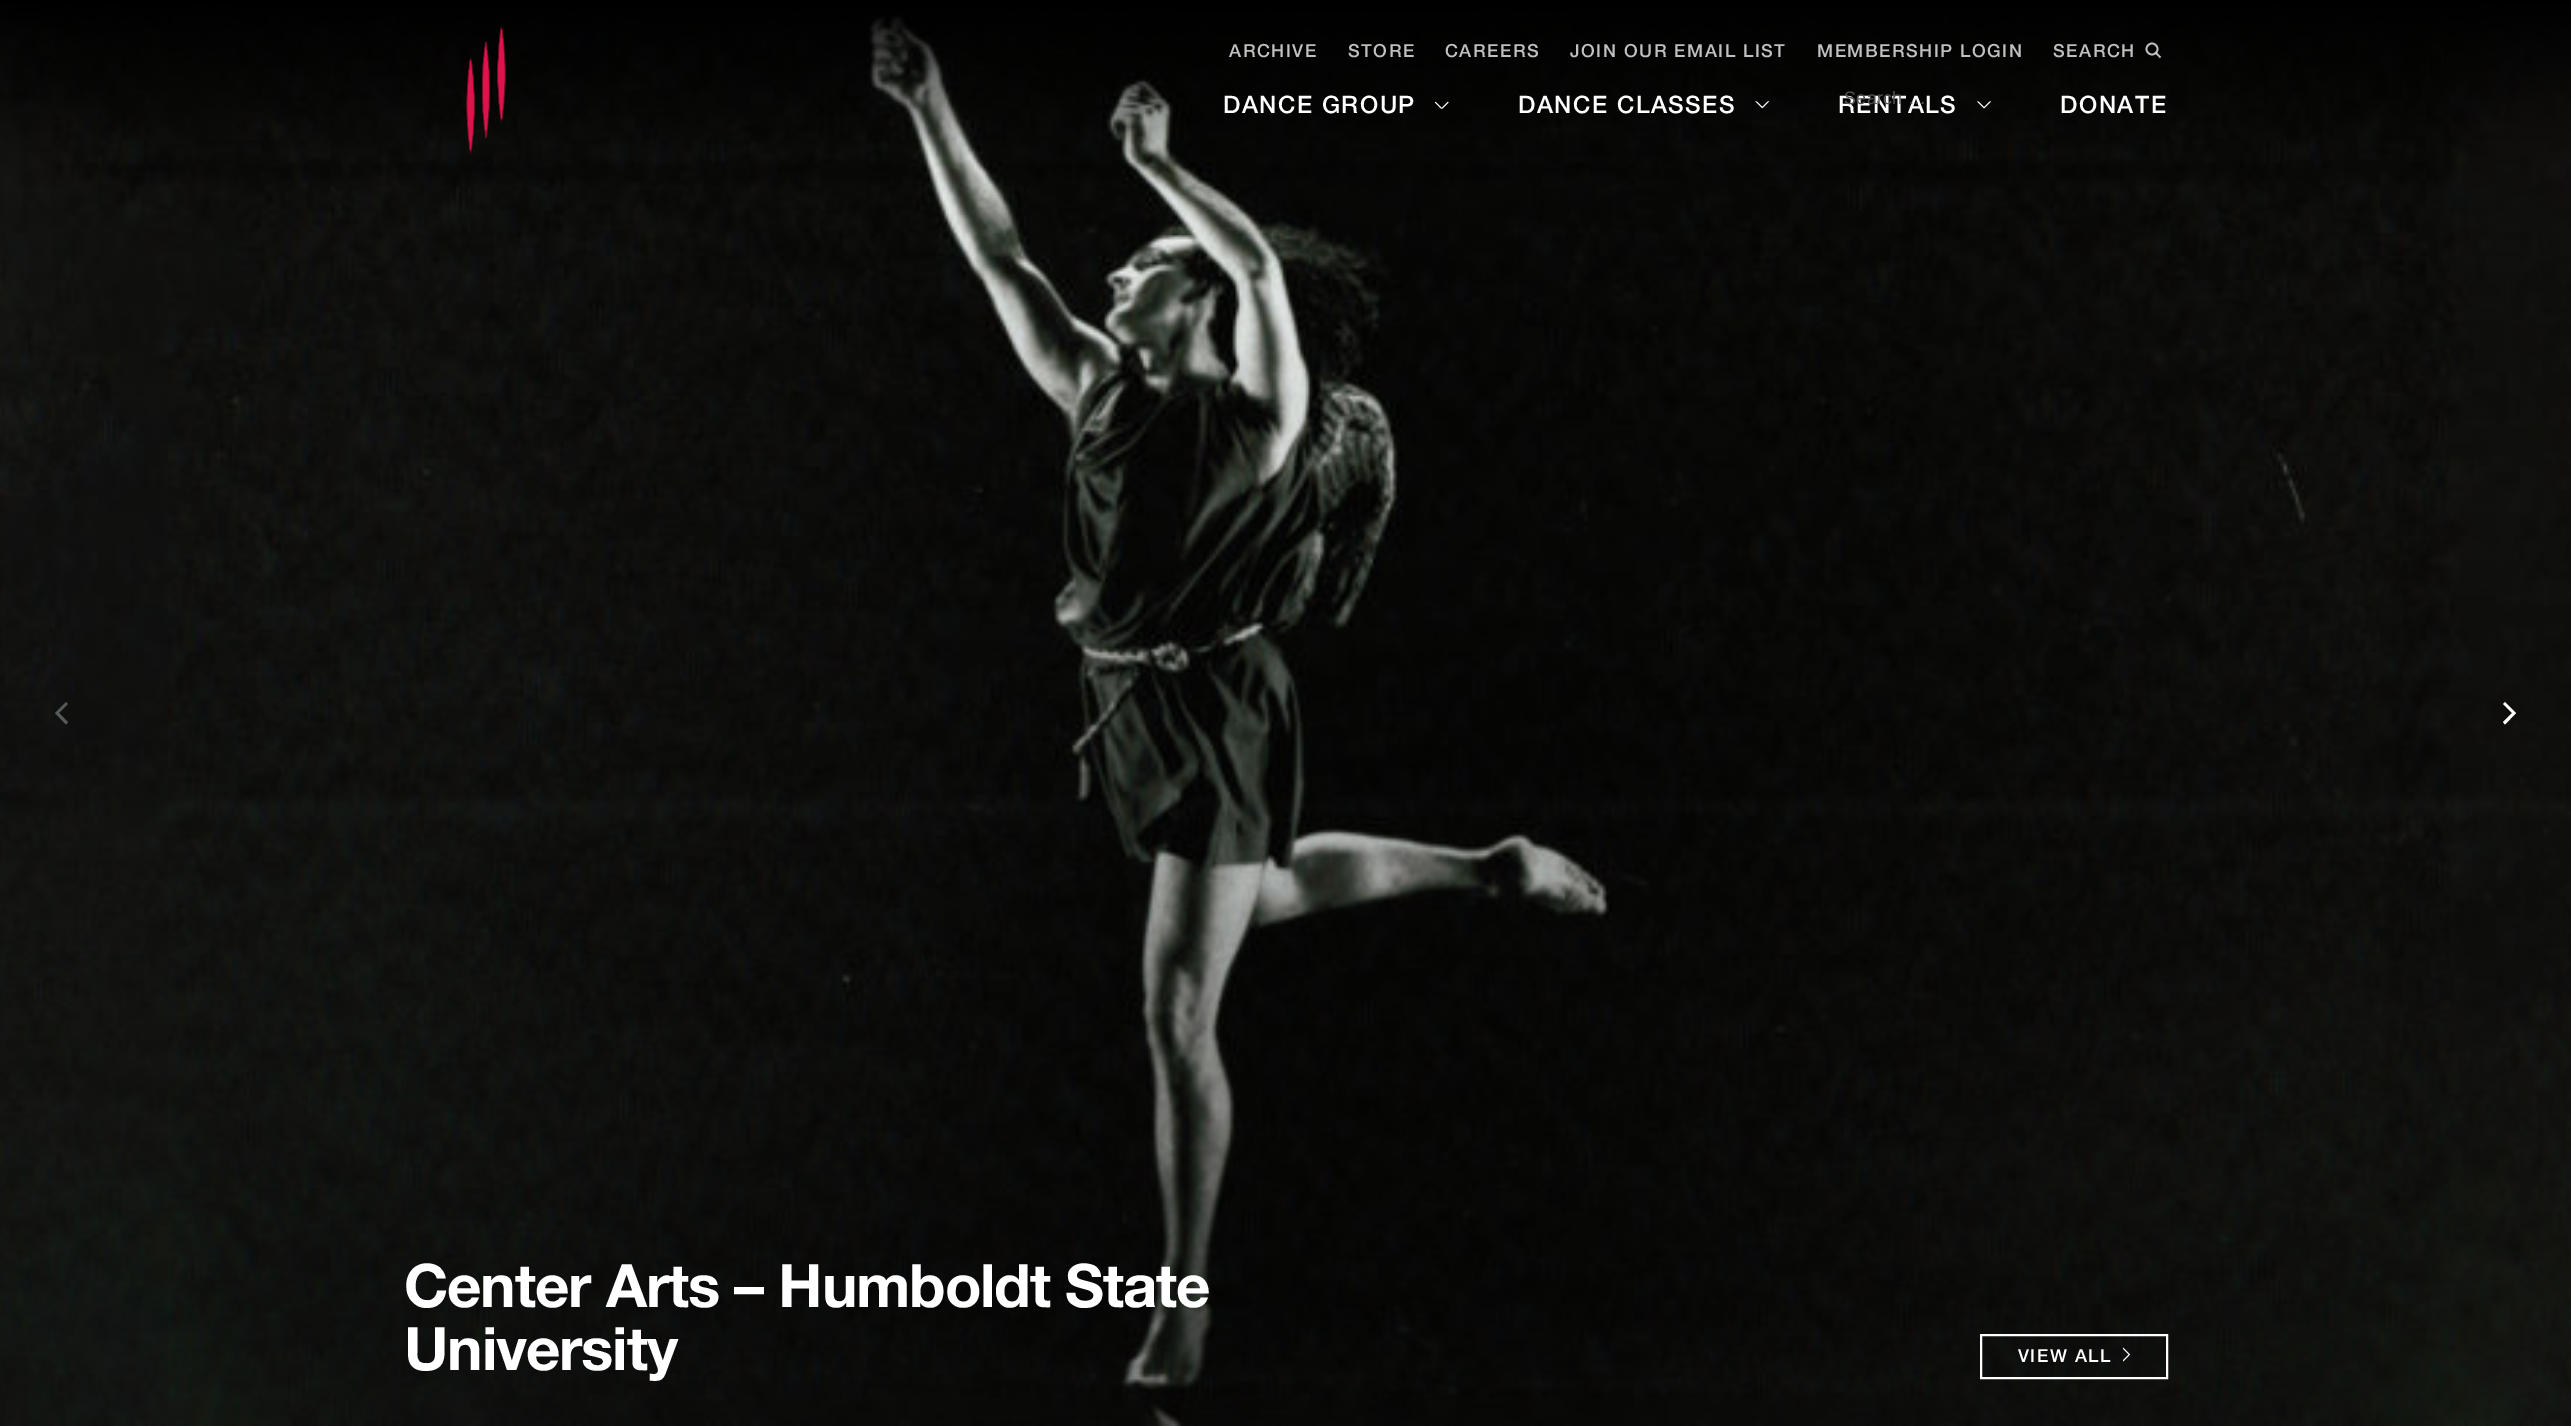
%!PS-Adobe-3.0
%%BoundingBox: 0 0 2571 1426
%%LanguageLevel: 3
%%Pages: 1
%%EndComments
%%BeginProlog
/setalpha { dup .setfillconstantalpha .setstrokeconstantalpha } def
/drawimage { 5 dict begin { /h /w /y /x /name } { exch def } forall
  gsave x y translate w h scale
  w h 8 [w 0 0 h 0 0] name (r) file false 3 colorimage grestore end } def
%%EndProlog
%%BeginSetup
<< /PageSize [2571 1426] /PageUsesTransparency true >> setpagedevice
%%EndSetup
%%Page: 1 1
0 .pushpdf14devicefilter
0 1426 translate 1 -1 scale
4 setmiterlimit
1 setgray
0 0 2571 1426 rectfill
(images/5.raw) 0 0 2571 1426 drawimage
(images/1.raw) 466 25 40 129 drawimage
0.753 setgray
1.7 setlinewidth
newpath 2152 49 5.5 0 360 arc closepath stroke
0.75 setalpha
1 setgray
newpath 2156 53 moveto 2160.5 57.5 lineto stroke
1 setalpha
(images/2.raw) 1434 101 15 8 drawimage
(images/3.raw) 1755 101 15 8 drawimage
(images/4.raw) 1977 101 14 8 drawimage
0.3 setalpha
newpath 55 713 moveto 66 724.5 lineto 68 722 lineto 59 713 lineto 68 704 lineto 66 702 lineto closepath fill
1 setalpha
newpath 2516 713 moveto 2505 702 lineto 2503 704 lineto 2512 713 lineto 2503 722 lineto 2505 724.5 lineto closepath fill
2 setlinewidth
1981 1335 186 43 rectstroke
(images/6.raw) 2123 1347 7 15 drawimage
/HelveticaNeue-Medium [18 0 0 -18 0 0] selectfont
0.753 setgray
1229 57 moveto 1.5 0 (ARCHIVE) ashow
1348 57 moveto 1.5 0 (STORE) ashow
1445 57 moveto 1.5 0 (CAREERS) ashow
1570 57 moveto 1.5 0 (JOIN OUR EMAIL LIST) ashow
1817 57 moveto 1.5 0 (MEMBERSHIP LOGIN) ashow
2053 57 moveto 1.5 0 (SEARCH) ashow
/HelveticaNeue-Medium [24 0 0 -24 0 0] selectfont
1 setgray
1223 113 moveto 1.5 0 (DANCE GROUP) ashow
1518 113 moveto 1.5 0 (DANCE CLASSES) ashow
1838 113 moveto 1.5 0 (RENTALS) ashow
/LiberationSans-Regular [18 0 0 -18 0 0] selectfont
0.337 setgray
1844 104 moveto 0.25 0 (Search …) ashow
/HelveticaNeue-Medium [24 0 0 -24 0 0] selectfont
1 setgray
2060 113 moveto 1.5 0 (DONATE) ashow
/HelveticaNeue-Bold [60 0 0 -60 0 0] selectfont
404 1307 moveto -1.2 0 (Center Arts – Humboldt State) ashow
404 1370 moveto -1.2 0 (University) ashow
/HelveticaNeue-Medium [18 0 0 -18 0 0] selectfont
2018 1362 moveto 1.5 0 (VIEW ALL) ashow
.poppdf14devicefilter showpage
%%EOF
